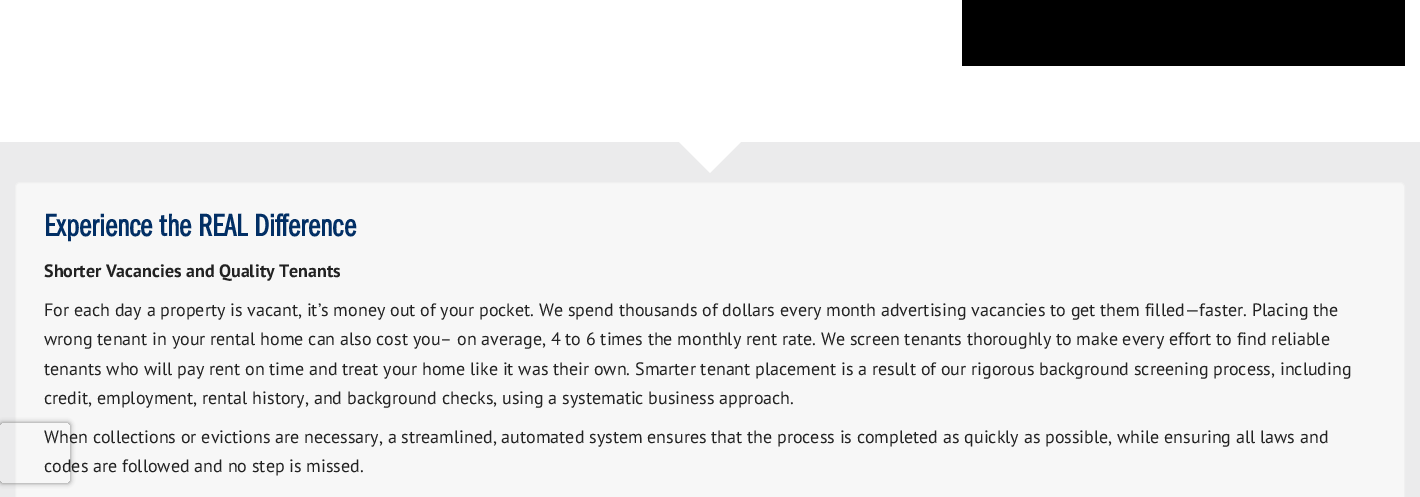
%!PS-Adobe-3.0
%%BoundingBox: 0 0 1420 497
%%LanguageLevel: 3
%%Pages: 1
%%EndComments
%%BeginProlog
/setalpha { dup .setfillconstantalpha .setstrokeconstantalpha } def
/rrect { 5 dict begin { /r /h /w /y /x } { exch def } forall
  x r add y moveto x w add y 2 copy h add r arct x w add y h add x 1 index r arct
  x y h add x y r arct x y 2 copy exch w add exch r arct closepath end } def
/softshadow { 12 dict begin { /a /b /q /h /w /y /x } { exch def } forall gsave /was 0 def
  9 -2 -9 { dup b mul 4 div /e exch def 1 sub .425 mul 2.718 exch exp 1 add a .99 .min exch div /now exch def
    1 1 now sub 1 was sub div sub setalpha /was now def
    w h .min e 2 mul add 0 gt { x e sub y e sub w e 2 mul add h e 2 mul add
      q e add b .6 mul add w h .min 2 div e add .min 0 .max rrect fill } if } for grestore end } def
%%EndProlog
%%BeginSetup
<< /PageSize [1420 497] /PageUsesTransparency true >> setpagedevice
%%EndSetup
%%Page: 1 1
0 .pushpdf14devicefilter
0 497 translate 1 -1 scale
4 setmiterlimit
1 setgray
0 0 1420 497 rectfill
0.922 0.922 0.925 setrgbcolor
0 142 1420 355 rectfill
0.969 setgray
15.5 182.5 1389 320 4.5 rrect gsave fill grestore
0.941 setgray
stroke
gsave
newpath 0 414 moveto 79 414 lineto 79 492 lineto 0 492 lineto closepath 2 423 moveto 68 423 lineto 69 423 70 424 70 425 curveto 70 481 lineto 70 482 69 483 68 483 curveto 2 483 lineto 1 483 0 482 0 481 curveto 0 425 lineto 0 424 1 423 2 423 curveto closepath eoclip newpath
0.502 setgray
0 423 70 60 2 2.5 1 softshadow
grestore
0 setgray
962 0 443 66 rectfill
1 setgray
newpath 679 142 moveto 741 142 lineto 710 173 lineto closepath fill
/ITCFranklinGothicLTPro-Bold [32 0 0 -32 0 0] selectfont
0.008 0.184 0.396 setrgbcolor
44 236 moveto (Experience the REAL Difference) show
/PTSans-Bold [18 0 0 -18 0 0] selectfont
0.133 setgray
44 277 moveto (Shorter Vacancies and Quality Tenants) show
/PTSans-Regular [18 0 0 -18 0 0] selectfont
44 316 moveto (For each day a property is vacant, it’s money out of your pocket. We spend thousands of dollars every month advertising vacancies to get them filled—faster. Placing the) show
44 345 moveto (wrong tenant in your rental home can also cost you– on average, 4 to 6 times the monthly rent rate. We screen tenants thoroughly to make every effort to find reliable) show
44 375 moveto (tenants who will pay rent on time and treat your home like it was their own. Smarter tenant placement is a result of our rigorous background screening process, including) show
44 404 moveto (credit, employment, rental history, and background checks, using a systematic business approach.) show
44 443 moveto (When collections or evictions are necessary, a streamlined, automated system ensures that the process is completed as quickly as possible, while ensuring all laws and) show
44 472 moveto (codes are followed and no step is missed.) show
.poppdf14devicefilter showpage
%%EOF
